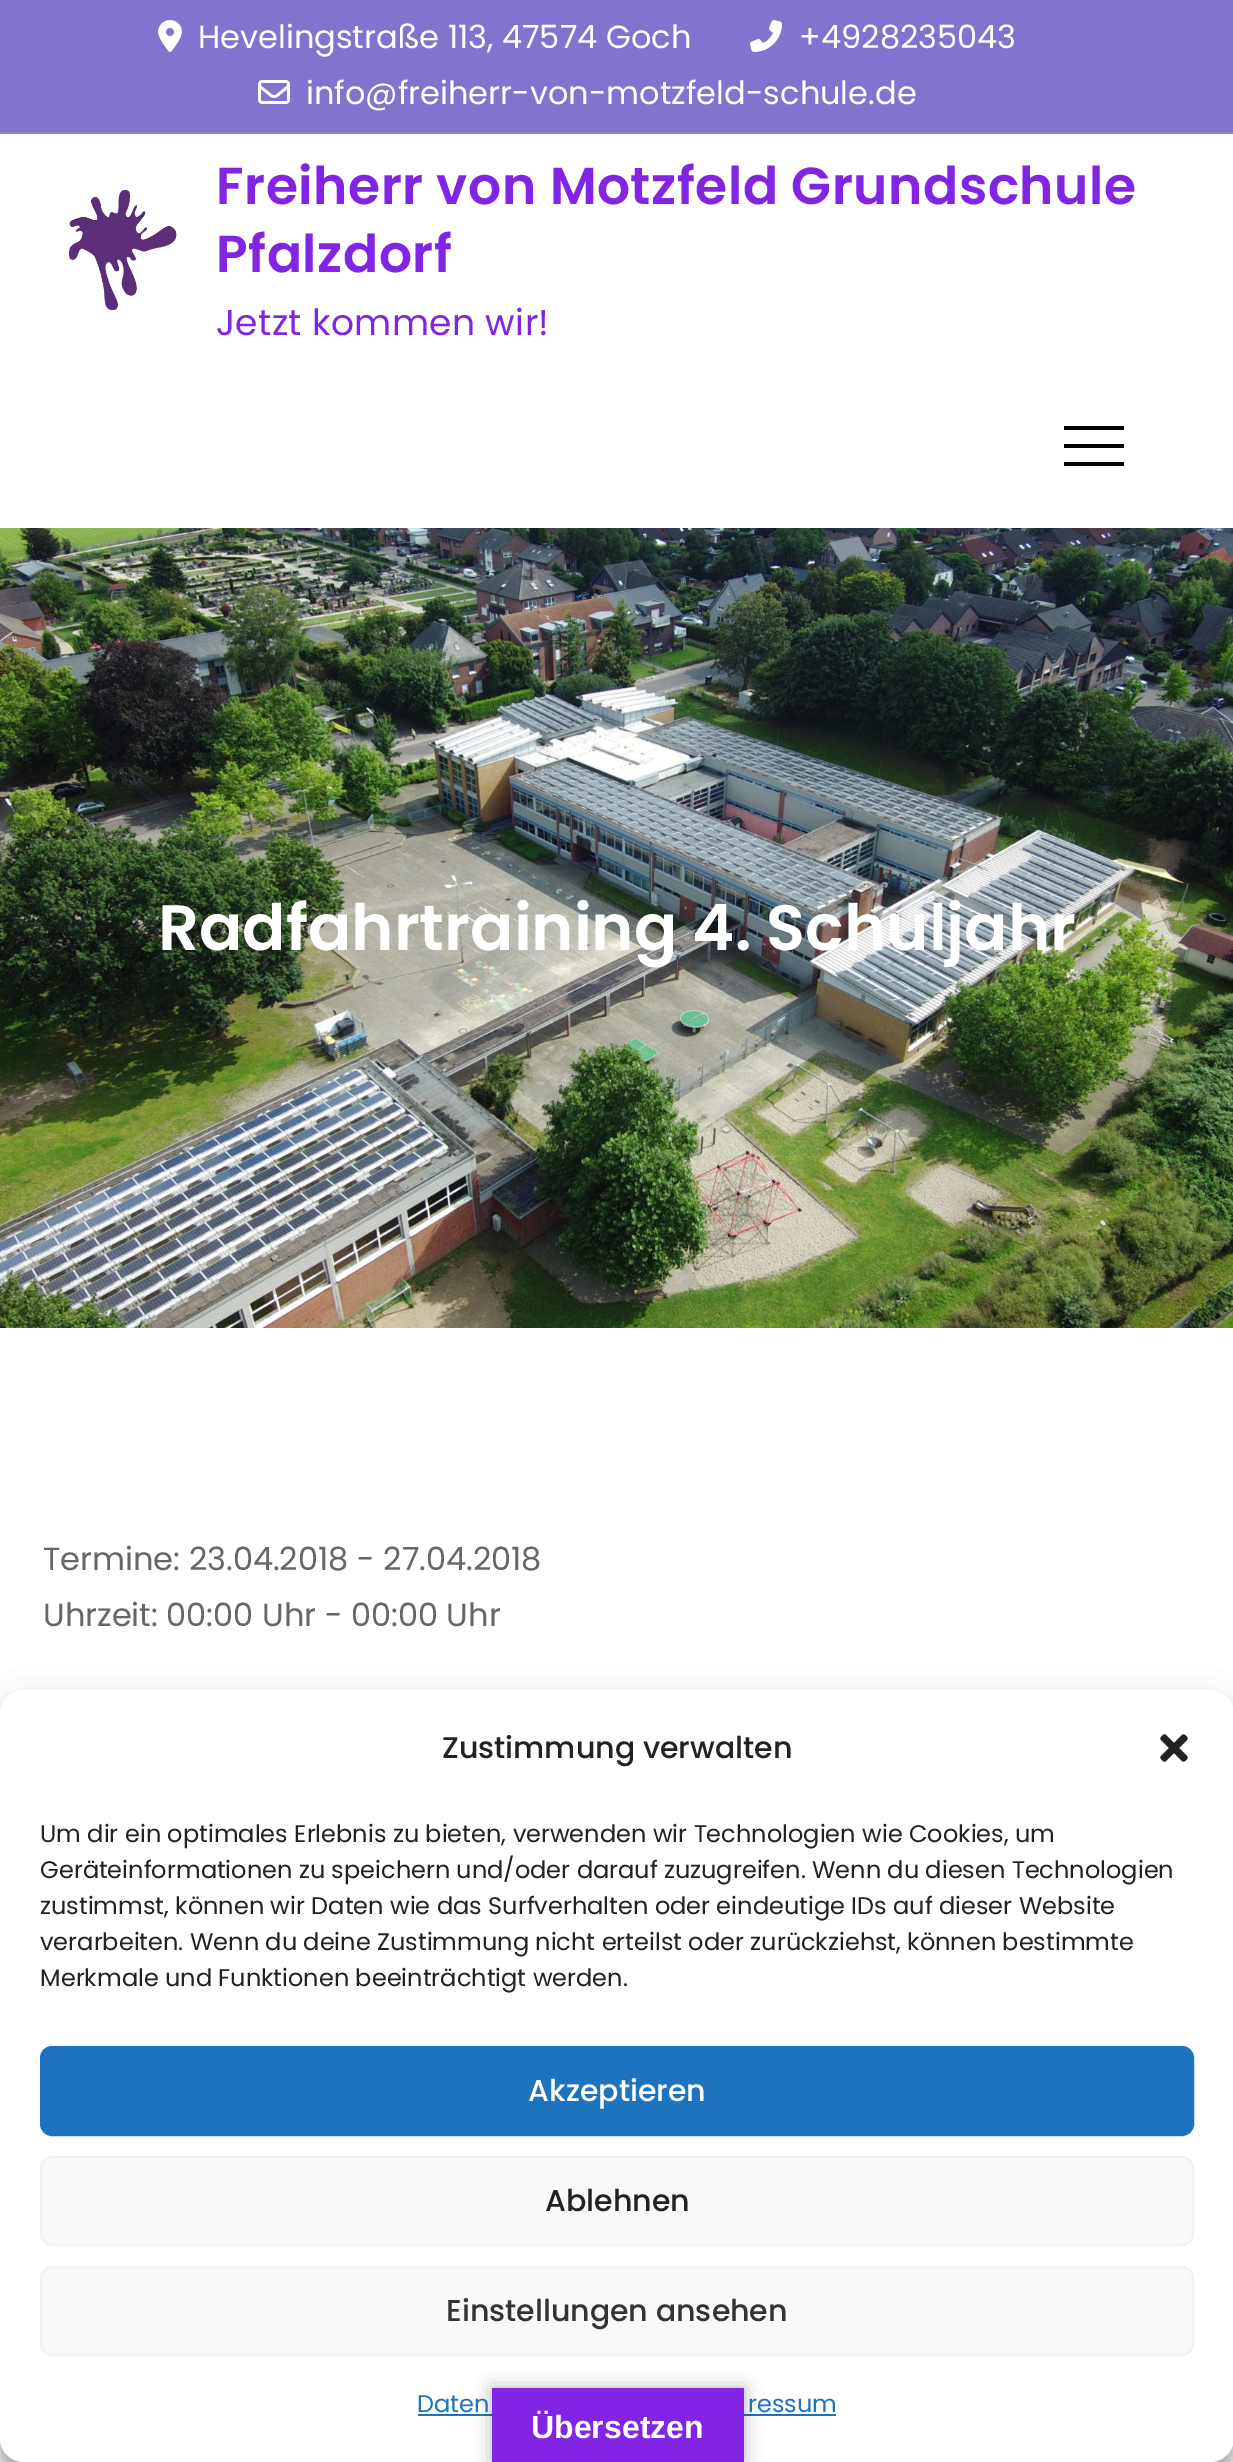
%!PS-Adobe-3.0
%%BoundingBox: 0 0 1233 2462
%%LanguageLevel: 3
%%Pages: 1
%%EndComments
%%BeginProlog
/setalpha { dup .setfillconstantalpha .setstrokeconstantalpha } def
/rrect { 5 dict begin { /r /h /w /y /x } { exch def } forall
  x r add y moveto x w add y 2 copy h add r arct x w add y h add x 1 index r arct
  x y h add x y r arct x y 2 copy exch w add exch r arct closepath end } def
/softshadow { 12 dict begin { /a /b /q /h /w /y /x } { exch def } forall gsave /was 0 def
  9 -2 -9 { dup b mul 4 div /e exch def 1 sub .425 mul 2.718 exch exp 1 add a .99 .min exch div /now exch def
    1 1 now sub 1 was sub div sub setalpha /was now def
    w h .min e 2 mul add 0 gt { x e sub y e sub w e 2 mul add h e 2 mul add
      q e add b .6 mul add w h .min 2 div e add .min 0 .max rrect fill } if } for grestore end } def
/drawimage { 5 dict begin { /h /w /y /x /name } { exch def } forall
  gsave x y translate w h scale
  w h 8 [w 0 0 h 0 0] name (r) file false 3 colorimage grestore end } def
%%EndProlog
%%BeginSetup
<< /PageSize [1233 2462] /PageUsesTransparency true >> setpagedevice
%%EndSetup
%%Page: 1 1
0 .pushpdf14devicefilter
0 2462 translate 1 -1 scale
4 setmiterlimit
1 setgray
0 0 1233 2462 rectfill
0.514 0.451 0.808 setrgbcolor
0 0 1233 132 rectfill
0.561 0.506 0.827 setrgbcolor
0 132 1233 2 rectfill
(images/1.raw) 158 20 24 32 drawimage
(images/2.raw) 750 20 32 32 drawimage
(images/3.raw) 258 80 32 24 drawimage
(images/4.raw) 69 189 108 122 drawimage
0 setgray
1064 426 60 4 rectfill
1064 444 60 4 rectfill
1064 462 60 4 rectfill
(images/5.raw) 0 528 1233 800 drawimage
0 1702 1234 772 24 6 0.23 softshadow
0 1710 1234 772 24 20 0.19 softshadow
1 setgray
0 1690 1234 772 24 rrect fill
0.118 0.451 0.745 setrgbcolor
418 2414 74 2 rectfill
744 2414 92 2 rectfill
0 setgray
492 2388 252 74 0 9 0.3 softshadow
0.51 0.141 0.89 setrgbcolor
492 2388 252 74 rectfill
(images/6.raw) 1160 1734 28 28 drawimage
0.118 0.451 0.745 setrgbcolor
41 2047 1152 88 11 rrect gsave fill grestore
2 setlinewidth
stroke
0.976 setgray
41 2157 1152 88 11 rrect gsave fill grestore
0.949 setgray
stroke
0.976 setgray
41 2267 1152 88 11 rrect gsave fill grestore
0.949 setgray
stroke
/Poppins-Regular [32 0 0 -32 0 0] selectfont
1 setgray
198 48 moveto (Hevelingstraße 113, 47574 Goch) show
799 48 moveto (+4928235043) show
306 104 moveto (info@freiherr-von-motzfeld-schule.de) show
/Poppins-SemiBold [52 0 0 -52 0 0] selectfont
0.51 0.141 0.89 setrgbcolor
216 204 moveto 0.5 0 (Freiherr von Motzfeld Grundschule) ashow
216 272 moveto 0.5 0 (Pfalzdorf) ashow
/Poppins-Regular [36 0 0 -36 0 0] selectfont
216 335 moveto 0.4 0 (Jetzt kommen wir!) ashow
/Poppins-SemiBold [64 0 0 -64 0 0] selectfont
1 setgray
158 950 moveto (Radfahrtraining 4. Schuljahr) show
/Poppins-Regular [32 0 0 -32 0 0] selectfont
0.4 setgray
43 1570 moveto (Termine: 23.04.2018 - 27.04.2018) show
43 1626 moveto (Uhrzeit: 00:00 Uhr - 00:00 Uhr) show
/LiberationSans-Bold [32 0 0 -32 0 0] selectfont
1 setgray
531 2438 moveto (Übersetzen) show
/Poppins-Medium [30 0 0 -30 0 0] selectfont
0.133 setgray
442 1758 moveto (Zustimmung verwalten) show
/Poppins-Regular [24 0 0 -24 0 0] selectfont
40 1842 moveto (Um dir ein optimales Erlebnis zu bieten, verwenden wir Technologien wie Cookies, um) show
40 1878 moveto (Geräteinformationen zu speichern und/oder darauf zuzugreifen. Wenn du diesen Technologien) show
40 1914 moveto (zustimmst, können wir Daten wie das Surfverhalten oder eindeutige IDs auf dieser Website) show
40 1950 moveto (verarbeiten. Wenn du deine Zustimmung nicht erteilst oder zurückziehst, können bestimmte) show
40 1986 moveto (Merkmale und Funktionen beeinträchtigt werden.) show
/Poppins-Medium [30 0 0 -30 0 0] selectfont
1 setgray
528 2101 moveto (Akzeptieren) show
0.133 setgray
545 2211 moveto (Ablehnen) show
0.2 setgray
446 2321 moveto (Einstellungen ansehen) show
/Poppins-Regular [24 0 0 -24 0 0] selectfont
0.118 0.451 0.745 setrgbcolor
417 2412 moveto (Daten) show
748 2412 moveto (ressum) show
.poppdf14devicefilter showpage
%%EOF
